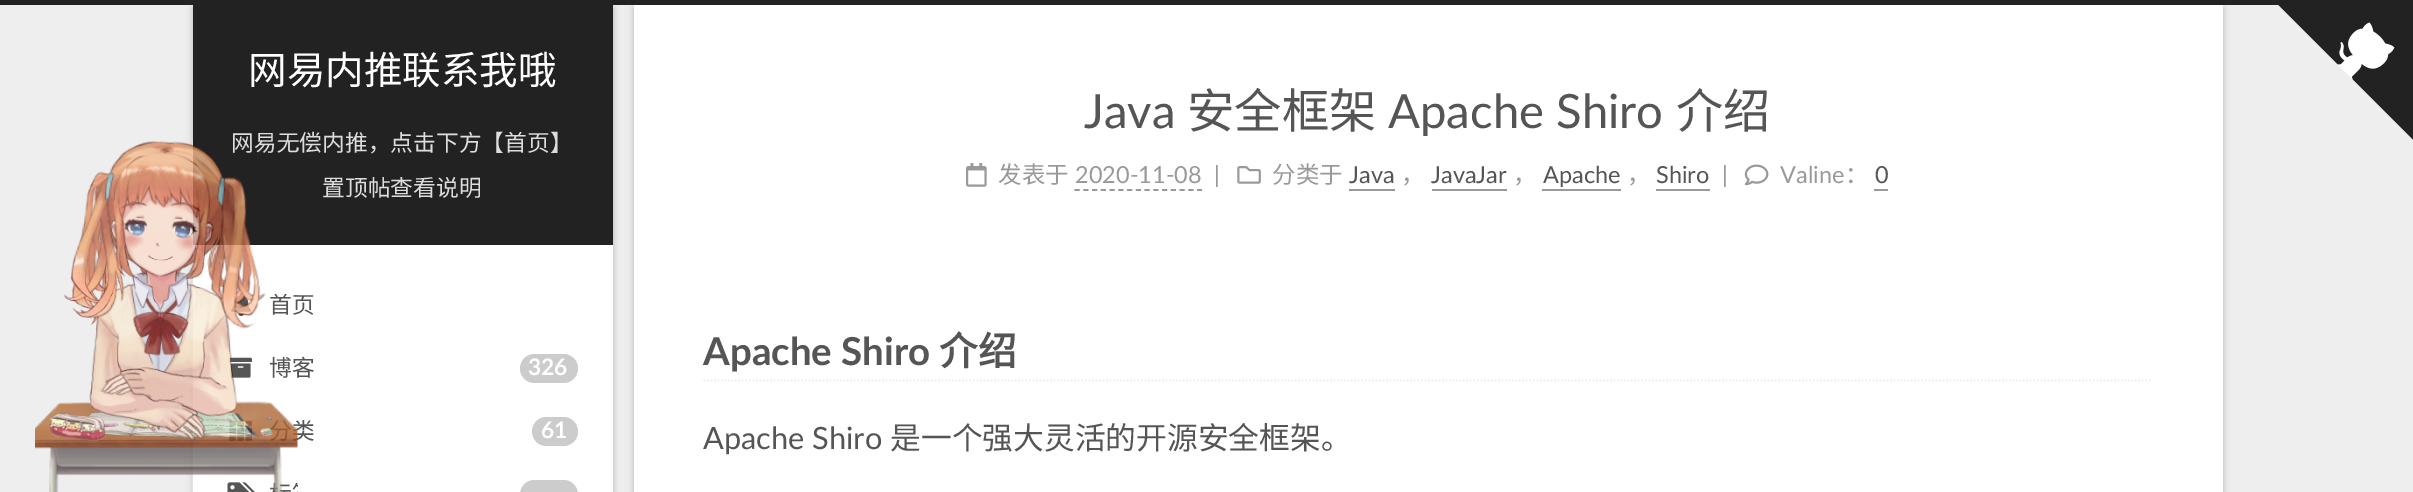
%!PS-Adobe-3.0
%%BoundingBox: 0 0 2413 492
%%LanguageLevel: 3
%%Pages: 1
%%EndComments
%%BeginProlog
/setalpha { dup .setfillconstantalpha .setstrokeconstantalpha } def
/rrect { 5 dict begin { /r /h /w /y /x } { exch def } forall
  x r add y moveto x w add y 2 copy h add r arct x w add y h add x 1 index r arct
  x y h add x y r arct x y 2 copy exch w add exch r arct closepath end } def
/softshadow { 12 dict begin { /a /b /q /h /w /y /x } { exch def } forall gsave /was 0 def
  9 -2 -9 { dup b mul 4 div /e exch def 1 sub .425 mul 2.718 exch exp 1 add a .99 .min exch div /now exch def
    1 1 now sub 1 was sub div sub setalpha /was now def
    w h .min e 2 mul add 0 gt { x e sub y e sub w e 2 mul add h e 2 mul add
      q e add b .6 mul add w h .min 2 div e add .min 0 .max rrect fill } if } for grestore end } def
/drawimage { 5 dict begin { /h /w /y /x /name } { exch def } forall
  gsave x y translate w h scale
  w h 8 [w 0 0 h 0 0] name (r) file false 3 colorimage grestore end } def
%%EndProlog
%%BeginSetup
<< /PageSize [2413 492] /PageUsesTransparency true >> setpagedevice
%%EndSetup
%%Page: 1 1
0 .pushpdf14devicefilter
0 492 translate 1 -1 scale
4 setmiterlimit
0.933 setgray
0 0 2413 492 rectfill
0.133 setgray
0 0 2413 5 rectfill
0 setgray
193 7 420 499 0 4.5 0.12 softshadow
193 9 420 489 0 2 0.12 softshadow
1 setgray
193 245 420 247 rectfill
0.133 setgray
193 5 420 240 rectfill
(images/2.raw) 231 293 20 23 drawimage
(images/3.raw) 229 357 23 21 drawimage
0.8 setgray
520 354 58 29 14.5 rrect fill
(images/4.raw) 229 420 23 21 drawimage
532 417 46 29 14.5 rrect fill
(images/5.raw) 227 482 28 10 drawimage
520 480 58 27 14.5 rrect fill
0 setgray
634 7 1589 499 0 4.5 0.12 softshadow
634 9 1589 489 0 2 0.12 softshadow
1 setgray
634 5 1589 487 rectfill
(images/6.raw) 966 163 21 24 drawimage
0.6 setgray
1.8 setlinewidth
[5.25 3.5] 0 setdash
newpath 1074.5 190 moveto 1202 190 lineto stroke
(images/7.raw) 1237 166 24 18 drawimage
1349 189 46 2 rectfill
1432 189 75 2 rectfill
1542 189 79 2 rectfill
1656 189 54 2 rectfill
(images/8.raw) 1744 164 25 22 drawimage
1874 189 14 2 rectfill
0.933 setgray
[1.75 1.75] 0 setdash
newpath 703.5 380.5 moveto 2152.5 380.5 lineto stroke
(images/9.raw) 2278 5 135 135 drawimage
/NotoSansCJKSC-Regular [38.5 0 0 -38.5 0 0] selectfont
1 setgray
248 84 moveto (网易内推联系我哦) show
/NotoSansCJKSC-Regular [22.75 0 0 -22.75 0 0] selectfont
0.867 setgray
231 151 moveto (网易无偿内推，点击下方【首页】) show
322 196 moveto (置顶帖查看说明) show
0.333 setgray
269 313 moveto (首页) show
269 376 moveto (博客) show
/Lato-Bold [22.75 0 0 -22.75 0 0] selectfont
1 setgray
528 375 moveto (326) show
/NotoSansCJKSC-Regular [22.75 0 0 -22.75 0 0] selectfont
0.333 setgray
292 439 moveto (类) show
(images/1.raw) 35 141 263 351 drawimage
/Lato-Bold [22.75 0 0 -22.75 0 0] selectfont
1 setgray
541 438 moveto (61) show
/Lato-Regular [47.25 0 0 -47.25 0 0] selectfont
0.333 setgray
1084 128 moveto (Java) show
/NotoSansCJKSC-Regular [47.25 0 0 -47.25 0 0] selectfont
1187 128 moveto (安全框架) show
/Lato-Regular [47.25 0 0 -47.25 0 0] selectfont
1388 128 moveto (Apache Shiro) show
/NotoSansCJKSC-Regular [47.25 0 0 -47.25 0 0] selectfont
1676 128 moveto (介绍) show
/NotoSansCJKSC-Regular [23.5 0 0 -23.5 0 0] selectfont
0.6 setgray
998 183 moveto (发表于) show
/Lato-Regular [23.5 0 0 -23.5 0 0] selectfont
1075 183 moveto (2020-11-08) show
1214 183 moveto (|) show
/NotoSansCJKSC-Regular [23.5 0 0 -23.5 0 0] selectfont
1272 183 moveto (分类于) show
/Lato-Regular [23.5 0 0 -23.5 0 0] selectfont
0.333 setgray
1349 183 moveto (Java) show
/NotoSansCJKSC-Regular [23.5 0 0 -23.5 0 0] selectfont
0.6 setgray
1401 183 moveto (，) show
/Lato-Regular [23.5 0 0 -23.5 0 0] selectfont
0.333 setgray
1431 183 moveto (JavaJar) show
/NotoSansCJKSC-Regular [23.5 0 0 -23.5 0 0] selectfont
0.6 setgray
1513 183 moveto (，) show
/Lato-Regular [23.5 0 0 -23.5 0 0] selectfont
0.333 setgray
1543 183 moveto (Apache) show
/NotoSansCJKSC-Regular [23.5 0 0 -23.5 0 0] selectfont
0.6 setgray
1627 183 moveto (，) show
/Lato-Regular [23.5 0 0 -23.5 0 0] selectfont
0.333 setgray
1656 183 moveto (Shiro) show
0.6 setgray
1722 183 moveto (|) show
1780 183 moveto (Valine) show
/NotoSansCJKSC-Regular [23.5 0 0 -23.5 0 0] selectfont
1845 183 moveto (：) show
/Lato-Regular [23.5 0 0 -23.5 0 0] selectfont
0.333 setgray
1875 183 moveto (0) show
/Lato-Bold [38.5 0 0 -38.5 0 0] selectfont
703 365 moveto (Apache Shiro) show
/NotoSansCJKSC-Bold [38.5 0 0 -38.5 0 0] selectfont
939 365 moveto (介绍) show
/Lato-Regular [30.75 0 0 -30.75 0 0] selectfont
703 449 moveto (Apache Shiro) show
/NotoSansCJKSC-Regular [30.75 0 0 -30.75 0 0] selectfont
890 449 moveto (是一个强大灵活的开源安全框架。) show
.poppdf14devicefilter showpage
%%EOF
